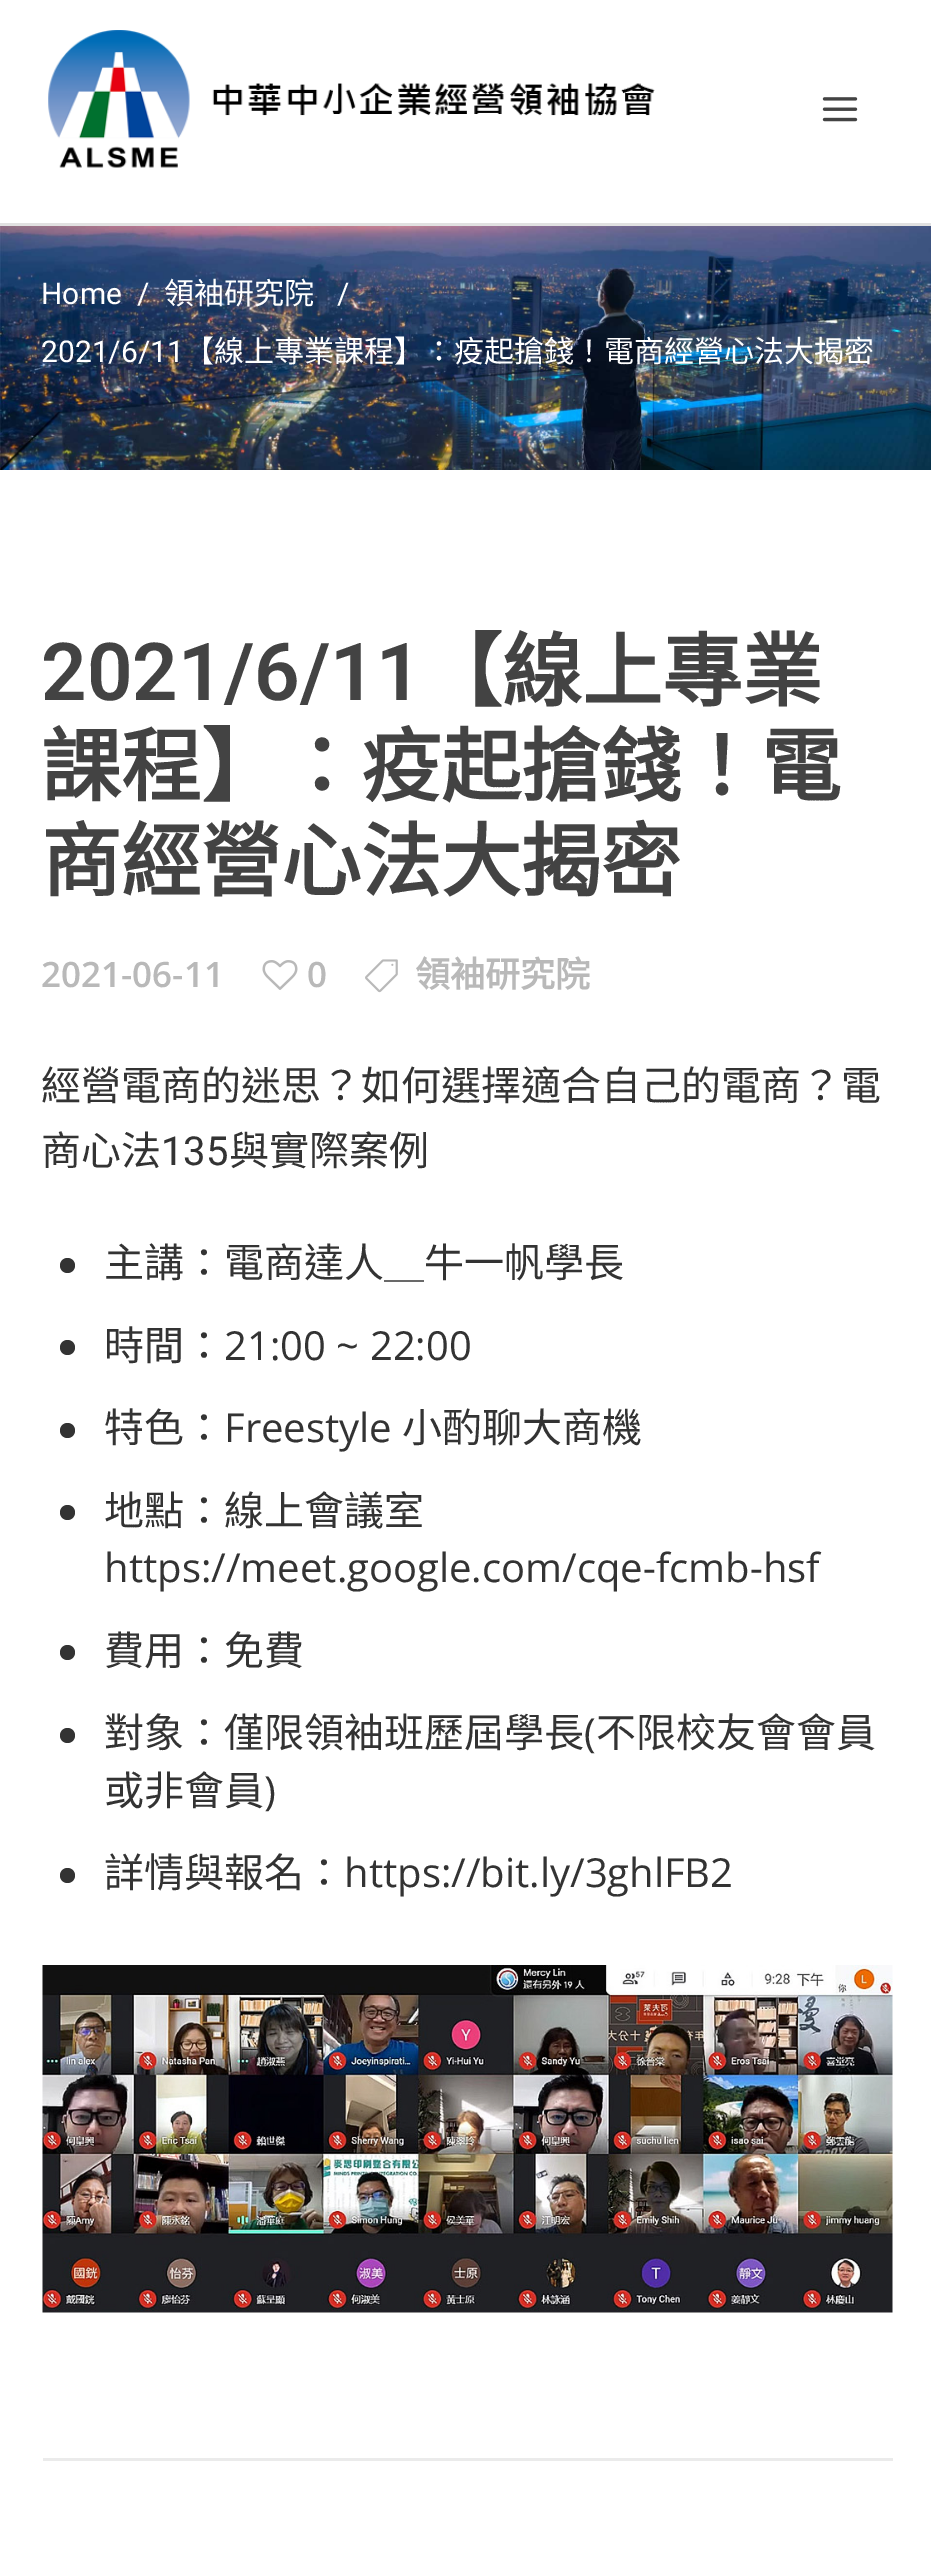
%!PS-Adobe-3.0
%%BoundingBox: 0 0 931 2567
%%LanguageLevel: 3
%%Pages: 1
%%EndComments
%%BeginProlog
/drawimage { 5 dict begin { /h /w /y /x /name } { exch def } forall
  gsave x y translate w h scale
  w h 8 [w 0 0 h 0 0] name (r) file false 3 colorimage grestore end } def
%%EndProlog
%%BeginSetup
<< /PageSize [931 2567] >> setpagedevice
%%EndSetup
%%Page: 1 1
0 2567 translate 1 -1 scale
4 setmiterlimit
1 setgray
0 0 931 2567 rectfill
0.882 setgray
0 223 931 3 rectfill
(images/1.raw) 48 30 607 138 drawimage
(images/2.raw) 822 97 36 25 drawimage
(images/3.raw) 0 226 931 244 drawimage
(images/4.raw) 262 960 36 30 drawimage
(images/5.raw) 365 959 33 34 drawimage
0.2 setgray
newpath 67.5 1265.5 7.5 0 360 arc closepath fill
newpath 67.5 1347.5 7.5 0 360 arc closepath fill
newpath 67.5 1430.5 7.5 0 360 arc closepath fill
newpath 67.5 1512.5 7.5 0 360 arc closepath fill
newpath 67.5 1652.5 7.5 0 360 arc closepath fill
newpath 67.5 1735.5 7.5 0 360 arc closepath fill
newpath 67.5 1875.5 7.5 0 360 arc closepath fill
(images/6.raw) 42 1965 851 348 drawimage
0.922 setgray
43 2458 850 3 rectfill
/Roboto-Regular [30 0 0 -30 0 0] selectfont
1 setgray
41 304 moveto (Home) show
137 304 moveto (/) show
/NotoSansCJKTC-Regular [30 0 0 -30 0 0] selectfont
164 304 moveto (領袖研究院) show
/Roboto-Regular [30 0 0 -30 0 0] selectfont
337 304 moveto (/) show
41 362 moveto (2021/6/11) show
/NotoSansCJKTC-Regular [30 0 0 -30 0 0] selectfont
184 362 moveto (【線上專業課程】：疫起搶錢！電商經營心法大揭密) show
/Roboto-SemiBold [80 0 0 -80 0 0] selectfont
0.263 setgray
41 700 moveto (2021/6/11) show
/NotoSansCJKTC-Bold [80 0 0 -80 0 0] selectfont
422 700 moveto (【線上專業) show
41 795 moveto (課程】：疫起搶錢！電) show
41 890 moveto (商經營心法大揭密) show
/OpenSans-SemiBold [35 0 0 -35 0 0] selectfont
0.725 setgray
41 987 moveto (2021-06-11) show
307 987 moveto (0) show
/NotoSansCJKTC-Bold [35 0 0 -35 0 0] selectfont
415 987 moveto (領袖研究院) show
/NotoSansCJKTC-Regular [40 0 0 -40 0 0] selectfont
0.2 setgray
41 1100 moveto (經營電商的迷思？如何選擇適合自己的電商？電) show
41 1165 moveto (商心法) show
/Roboto-Regular [40 0 0 -40 0 0] selectfont
161 1165 moveto (135) show
/NotoSansCJKTC-Regular [40 0 0 -40 0 0] selectfont
229 1165 moveto (與實際案例) show
104 1277 moveto (主講：電商達人＿牛一帆學長) show
104 1360 moveto (時間：) show
/OpenSans-Regular [40 0 0 -40 0 0] selectfont
224 1360 moveto (21:00 ~ 22:00) show
/NotoSansCJKTC-Regular [40 0 0 -40 0 0] selectfont
104 1442 moveto (特色：) show
/OpenSans-Regular [40 0 0 -40 0 0] selectfont
224 1442 moveto (Freestyle) show
/NotoSansCJKTC-Regular [40 0 0 -40 0 0] selectfont
402 1442 moveto (小酌聊大商機) show
104 1525 moveto (地點：線上會議室) show
/OpenSans-Regular [40 0 0 -40 0 0] selectfont
104 1582 moveto (https://meet.google.com/cqe-fcmb-hsf) show
/NotoSansCJKTC-Regular [40 0 0 -40 0 0] selectfont
104 1665 moveto (費用：免費) show
104 1747 moveto (對象：僅限領袖班歷屆學長) show
/OpenSans-Regular [40 0 0 -40 0 0] selectfont
584 1747 moveto (\() show
/NotoSansCJKTC-Regular [40 0 0 -40 0 0] selectfont
596 1747 moveto (不限校友會會員) show
104 1805 moveto (或非會員) show
/OpenSans-Regular [40 0 0 -40 0 0] selectfont
264 1805 moveto (\)) show
/NotoSansCJKTC-Regular [40 0 0 -40 0 0] selectfont
104 1887 moveto (詳情與報名：) show
/OpenSans-Regular [40 0 0 -40 0 0] selectfont
344 1887 moveto (https://bit.ly/3ghlFB2) show
showpage
%%EOF
